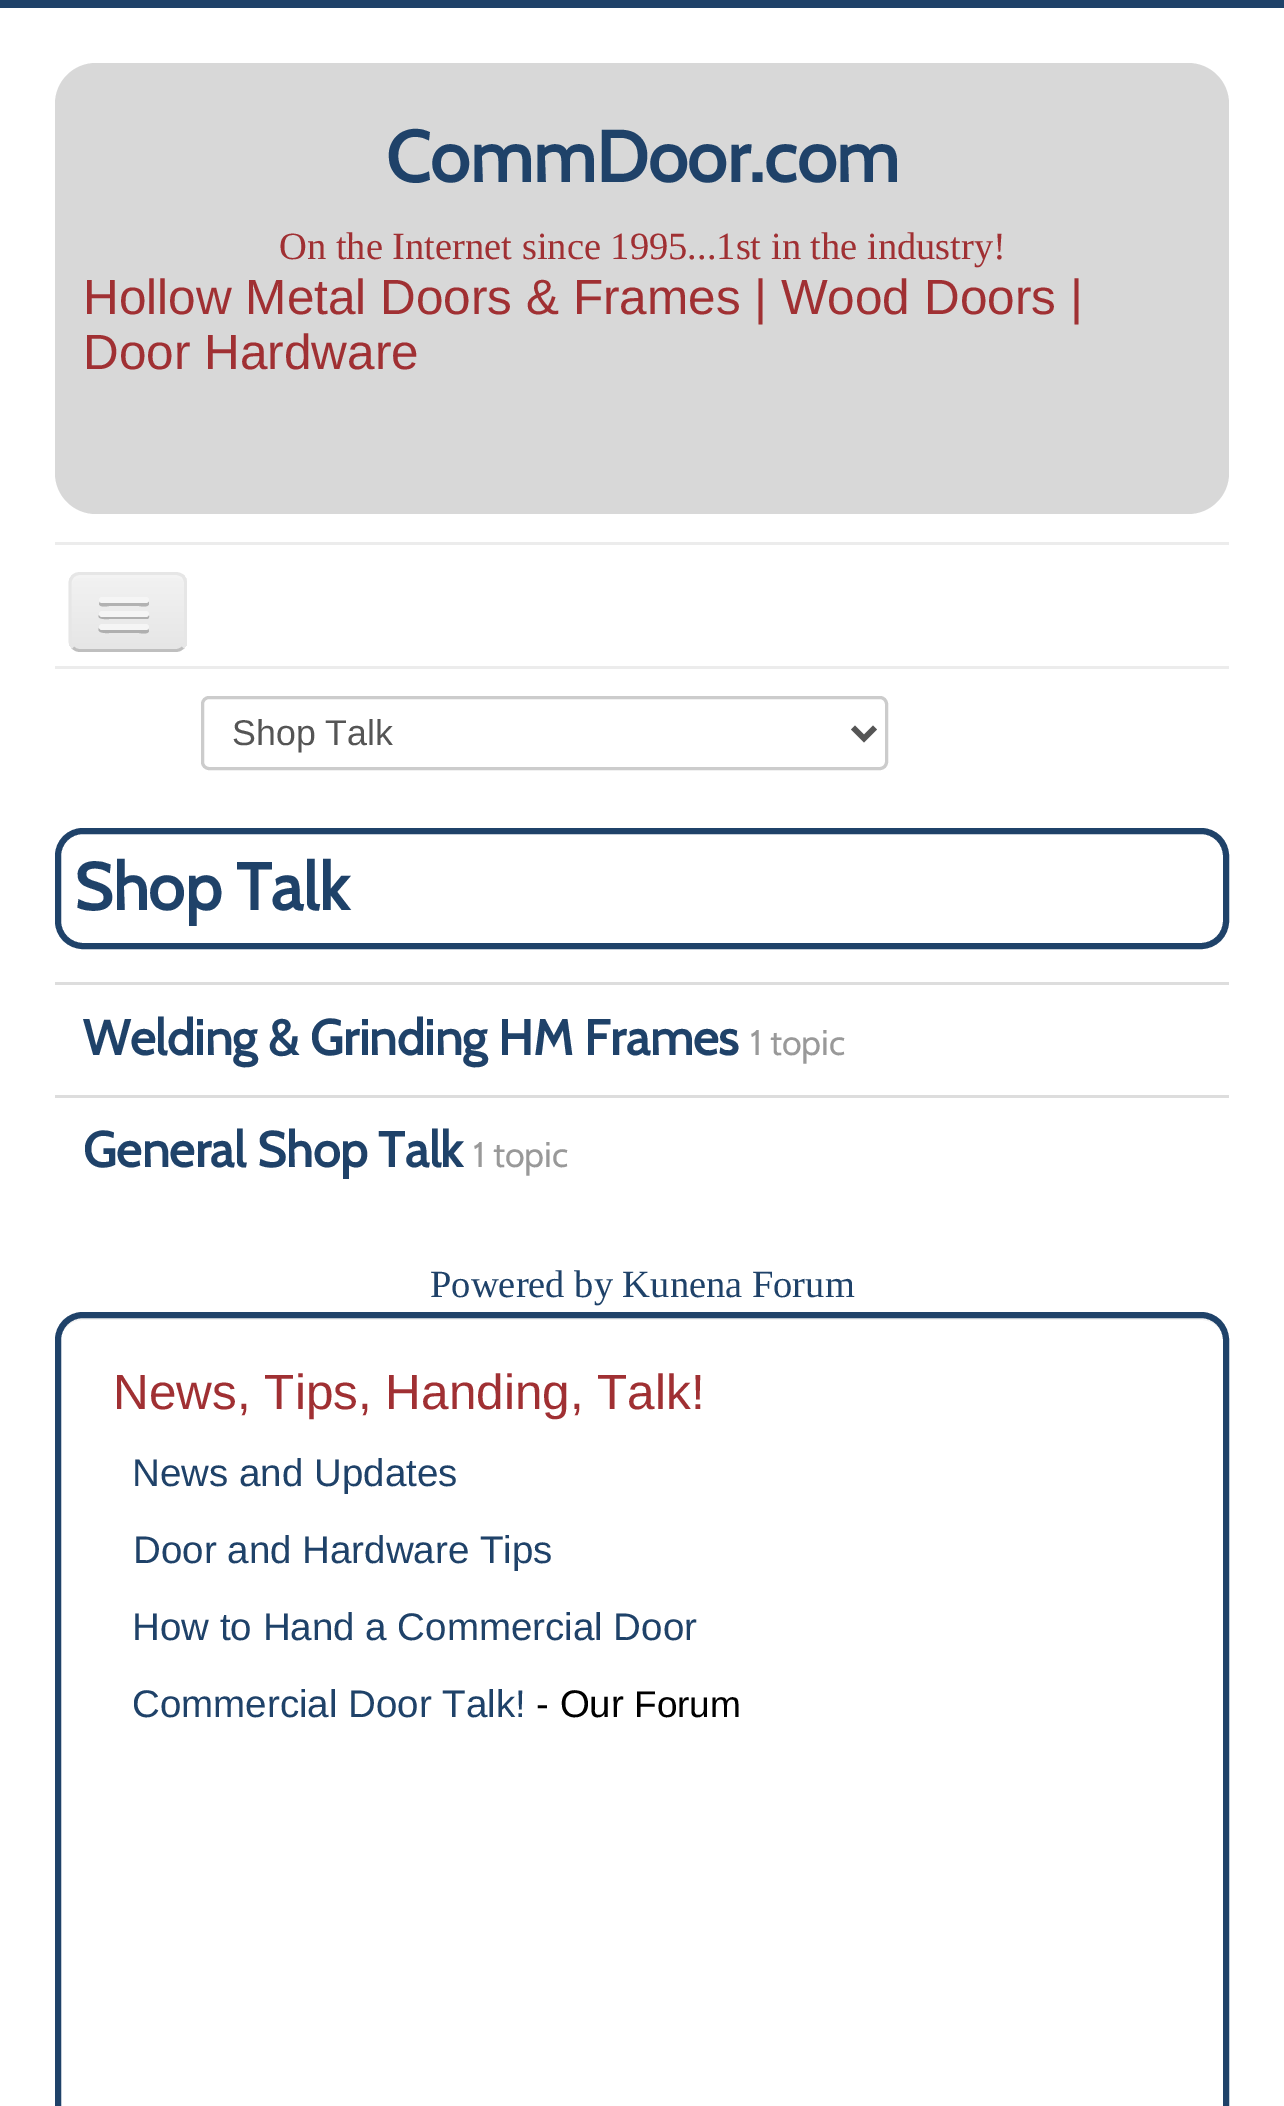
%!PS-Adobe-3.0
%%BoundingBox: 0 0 1284 2106
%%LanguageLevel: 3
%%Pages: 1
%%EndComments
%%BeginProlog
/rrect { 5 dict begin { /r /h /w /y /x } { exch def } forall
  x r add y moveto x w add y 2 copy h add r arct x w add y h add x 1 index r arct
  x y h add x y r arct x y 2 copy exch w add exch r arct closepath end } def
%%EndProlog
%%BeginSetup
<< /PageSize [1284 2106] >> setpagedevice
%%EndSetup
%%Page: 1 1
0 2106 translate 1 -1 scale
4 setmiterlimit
1 setgray
0 0 1284 2106 rectfill
0.122 0.259 0.412 setrgbcolor
0 0 1284 8 rectfill
0.847 setgray
55 63 1174 451 41 rrect fill
0.925 setgray
55 542 1174 3 rectfill
55 666 1174 3 rectfill
gsave
69 572 118 80 11 rrect clip newpath
gsave newpath 69 575 moveto 187 575 lineto 187 649 lineto 69 649 lineto closepath clip newpath
<< /ShadingType 2 /ColorSpace /DeviceRGB /Coords [128 575 128 649] /Extend [true true] /Function << /FunctionType 2 /Domain [0 1] /C0 [0.949 0.949 0.949] /C1 [0.902 0.902 0.902] /N 1 >> >> shfill grestore
grestore
0.953 setgray
newpath 80 578 moveto 176 578 lineto 181 578 184 581 184 586 curveto 184 571 172 575 160 575 curveto 96 575 lineto 84 575 72 571 72 586 curveto 72 581 75 578 80 578 curveto closepath fill
0.749 setgray
2.8 setlinewidth
newpath 183 647.5 moveto 181 649.5 178.5 650.5 176 650.5 curveto 80 650.5 lineto 77 650.5 74.5 649.5 73 647.5 curveto stroke
0.902 setgray
newpath 73 647.5 moveto 71 646 70 643.5 70 641 curveto 70 583 lineto 70 580.5 71 578 73 576 curveto 74.5 574.5 77 573.5 80 573.5 curveto 176 573.5 lineto 178.5 573.5 181 574.5 183 576 curveto 184.5 578 185.5 580.5 185.5 583 curveto 185.5 641 lineto 185.5 643.5 184.5 646 183 647.5 curveto stroke
0.698 setgray
newpath 100 601 moveto 99 604 lineto 100 608 108 606 109 606 curveto 139 606 lineto 140 606 148 608 149 604 curveto 149 603 149 602 148 601 curveto 146 602 lineto 101 602 lineto closepath fill
0.961 setgray
99 597 50 6 3 rrect fill
0.69 setgray
newpath 99 615 moveto 96 620 108 619 109 619 curveto 147 619 lineto 149 619 150 616 148 614 curveto 148 615 147 616 146 616 curveto 102 616 lineto 101 616 100 615 99 615 curveto closepath fill
0.961 setgray
99 611 50 6 3 rrect fill
0.686 setgray
newpath 99 628 moveto 96 634 109 633 109 633 curveto 139 633 lineto 140 633 148 635 149 631 curveto 148 628 lineto 147 630 lineto 101 630 lineto closepath fill
0.961 setgray
99 624 50 6 3 rrect fill
0.8 setgray
3 setlinewidth
202.5 697.5 684 71 6.5 rrect stroke
0.333 setgray
5.5 setlinewidth
newpath 853 727.5 moveto 864 738.5 lineto 875 727.5 lineto stroke
0.122 0.259 0.412 setrgbcolor
6 setlinewidth
58 831 1168 115 25 rrect stroke
0.867 setgray
55 982 1174 3 rectfill
55 1095 1174 3 rectfill
0.949 setgray
newpath 82 1320 moveto 1202 1320 lineto 1214 1320 1224 1330 1224 1342 curveto 1224 1339 lineto 1224 1327 1214 1317 1202 1317 curveto 83 1317 lineto 73 1317 64 1324 62 1334 curveto 65 1326 73 1320 82 1320 curveto closepath fill
0.122 0.259 0.412 setrgbcolor
58 1315 1168 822 25 rrect stroke
/Cabin-Bold [71.75 0 0 -71.75 0 0] selectfont
386 182 moveto (CommDoor.com) show
/LiberationSerif-Regular [38.5 0 0 -38.5 0 0] selectfont
0.627 0.188 0.2 setrgbcolor
279 259 moveto (On the Internet since 1995...1st in the industry!) show
/LiberationSans-Regular [49.5 0 0 -49.5 0 0] selectfont
83 314 moveto (Hollow Metal Doors & Frames | Wood Doors |) show
83 369 moveto (Door Hardware) show
/LiberationSans-Regular [35.75 0 0 -35.75 0 0] selectfont
0.333 setgray
232 745 moveto (Shop Talk) show
/Cabin-Bold [66 0 0 -66 0 0] selectfont
0.122 0.259 0.412 setrgbcolor
74 910 moveto (Shop Talk) show
/Cabin-Bold [49.5 0 0 -49.5 0 0] selectfont
83 1055 moveto (Welding & Grinding HM Frames) show
/Cabin-Regular [35.75 0 0 -35.75 0 0] selectfont
0.6 setgray
750 1055 moveto (1 topic) show
/Cabin-Bold [49.5 0 0 -49.5 0 0] selectfont
0.122 0.259 0.412 setrgbcolor
83 1167 moveto (General Shop Talk) show
/Cabin-Regular [35.75 0 0 -35.75 0 0] selectfont
0.6 setgray
473 1167 moveto (1 topic) show
/LiberationSerif-Regular [38.5 0 0 -38.5 0 0] selectfont
0.122 0.259 0.412 setrgbcolor
430 1297 moveto (Powered by Kunena Forum) show
/LiberationSans-Regular [49.5 0 0 -49.5 0 0] selectfont
0.627 0.188 0.2 setrgbcolor
113 1409 moveto (News, Tips, Handing, Talk!) show
/LiberationSans-Regular [38.5 0 0 -38.5 0 0] selectfont
0.122 0.259 0.412 setrgbcolor
132 1486 moveto (News and Updates) show
133 1563 moveto (Door and Hardware Tips) show
132 1640 moveto (How to Hand a Commercial Door) show
132 1717 moveto (Commercial Door Talk!) show
0 setgray
536 1717 moveto (- Our) show
/LiberationSans-Regular [37 0 0 -37 0 0] selectfont
634 1717 moveto (Forum) show
showpage
%%EOF
